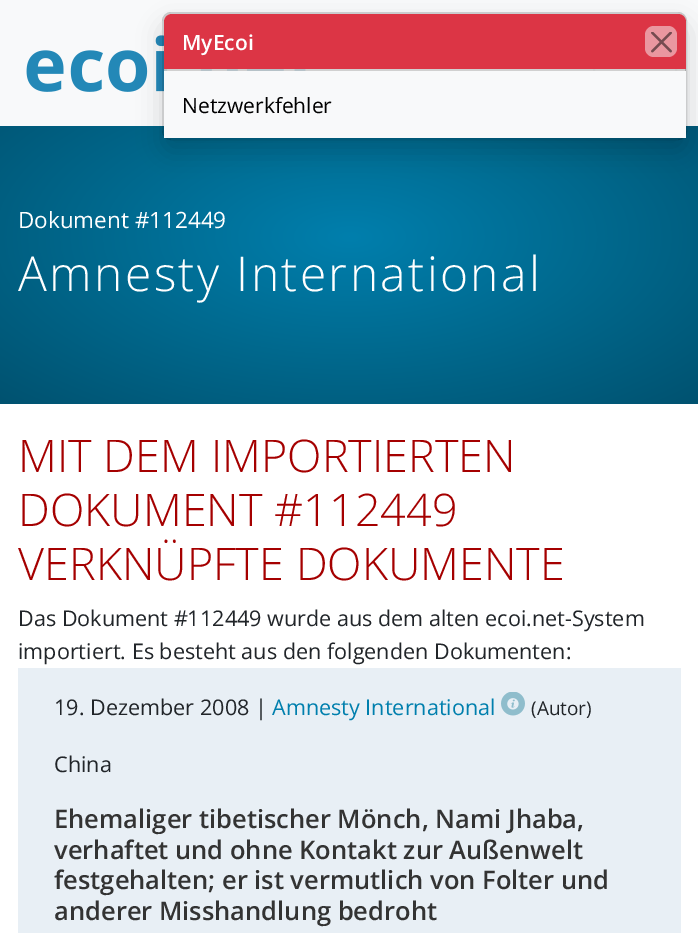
%!PS-Adobe-3.0
%%BoundingBox: 0 0 698 933
%%LanguageLevel: 3
%%Pages: 1
%%EndComments
%%BeginProlog
/setalpha { dup .setfillconstantalpha .setstrokeconstantalpha } def
/rrect { 5 dict begin { /r /h /w /y /x } { exch def } forall
  x r add y moveto x w add y 2 copy h add r arct x w add y h add x 1 index r arct
  x y h add x y r arct x y 2 copy exch w add exch r arct closepath end } def
/softshadow { 12 dict begin { /a /b /q /h /w /y /x } { exch def } forall gsave /was 0 def
  9 -2 -9 { dup b mul 4 div /e exch def 1 sub .425 mul 2.718 exch exp 1 add a .99 .min exch div /now exch def
    1 1 now sub 1 was sub div sub setalpha /was now def
    w h .min e 2 mul add 0 gt { x e sub y e sub w e 2 mul add h e 2 mul add
      q e add b .6 mul add w h .min 2 div e add .min 0 .max rrect fill } if } for grestore end } def
/drawimage { 5 dict begin { /h /w /y /x /name } { exch def } forall
  gsave x y translate w h scale
  w h 8 [w 0 0 h 0 0] name (r) file false 3 colorimage grestore end } def
%%EndProlog
%%BeginSetup
<< /PageSize [698 933] /PageUsesTransparency true >> setpagedevice
%%EndSetup
%%Page: 1 1
0 .pushpdf14devicefilter
0 933 translate 1 -1 scale
4 setmiterlimit
1 setgray
0 0 698 933 rectfill
0.973 0.976 0.98 setrgbcolor
0 0 698 126 rectfill
(images/1.raw) 26 35 280 57 drawimage
0.827 0.831 0.835 setrgbcolor
2 setlinewidth
594 34 82 58 rectstroke
gsave newpath 0 126 moveto 698 126 lineto 698 404 lineto 0 404 lineto closepath clip newpath 350 237 translate 494 235 scale
<< /ShadingType 3 /ColorSpace /DeviceRGB /Coords [0 0 0 0 0 1] /Extend [true true] /Function << /FunctionType 2 /Domain [0 1] /C0 [0 0.498 0.678] /C1 [0 0.322 0.439] /N 1 >> >> shfill grestore
gsave
newpath 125 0 moveto 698 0 lineto 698 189 lineto 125 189 lineto closepath 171 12 moveto 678 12 lineto 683 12 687 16 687 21 curveto 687 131 lineto 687 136 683 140 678 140 curveto 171 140 lineto 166 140 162 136 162 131 curveto 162 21 lineto 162 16 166 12 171 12 curveto closepath eoclip newpath
0 setgray
162 24 525 128 9 12 0.15 softshadow
grestore
0.85 setalpha
1 setgray
164 14 522 124 8 rrect fill
0.18 setalpha
0 setgray
163 13 523 126 8 rrect stroke
1 setalpha
0.863 0.208 0.271 setrgbcolor
newpath 172 14 moveto 678 14 lineto 682.5 14 686 17.5 686 22 curveto 686 69 lineto 164 69 lineto 164 22 lineto 164 17.5 167.5 14 172 14 curveto closepath fill
0.18 setalpha
0 setgray
164 69 522 2 rectfill
1 setalpha
0.918 0.592 0.627 setrgbcolor
645 26 32 31 9 rrect fill
(images/2.raw) 651 32 21 21 drawimage
0.973 0.976 0.98 setrgbcolor
164 71 522 67 rectfill
0.91 0.937 0.961 setrgbcolor
18 668 663 265 rectfill
(images/3.raw) 501 692 24 24 drawimage
/OpenSans-SemiBold [21 0 0 -21 0 0] selectfont
1 setgray
182 50 moveto (MyEcoi) show
/OpenSans-Regular [21 0 0 -21 0 0] selectfont
0 setgray
182 113 moveto (Netzwerkfehler) show
/OpenSans-Regular [22.5 0 0 -22.5 0 0] selectfont
1 setgray
18 228 moveto (Dokument #112449) show
/OpenSans-Light [48 0 0 -48 0 0] selectfont
18 291 moveto 2.4 0 (Amnesty International) ashow
/OpenSans-Light [45 0 0 -45 0 0] selectfont
0.647 0 0 setrgbcolor
18 472 moveto (MIT DEM IMPORTIERTEN) show
18 526 moveto (DOKUMENT #112449) show
18 580 moveto (VERKNÜPFTE DOKUMENTE) show
/OpenSans-Regular [21.6 0 0 -21.6 0 0] selectfont
0.129 0.145 0.161 setrgbcolor
18 626 moveto (Das Dokument #112449 wurde aus dem alten ecoi.net-System) show
18 659 moveto (importiert. Es besteht aus den folgenden Dokumenten:) show
54 715 moveto (19. Dezember 2008 |) show
0 0.498 0.678 setrgbcolor
272 715 moveto (Amnesty International) show
/OpenSans-Regular [19 0 0 -19 0 0] selectfont
0.129 0.145 0.161 setrgbcolor
531 715 moveto (\(Autor\)) show
/OpenSans-Regular [21.6 0 0 -21.6 0 0] selectfont
54 772 moveto (China) show
/OpenSans-SemiBold [25.5 0 0 -25.5 0 0] selectfont
0.2 setgray
54 828 moveto (Ehemaliger tibetischer Mönch, Nami Jhaba,) show
54 859 moveto (verhaftet und ohne Kontakt zur Außenwelt) show
54 889 moveto (festgehalten; er ist vermutlich von Folter und) show
54 920 moveto (anderer Misshandlung bedroht) show
.poppdf14devicefilter showpage
%%EOF
